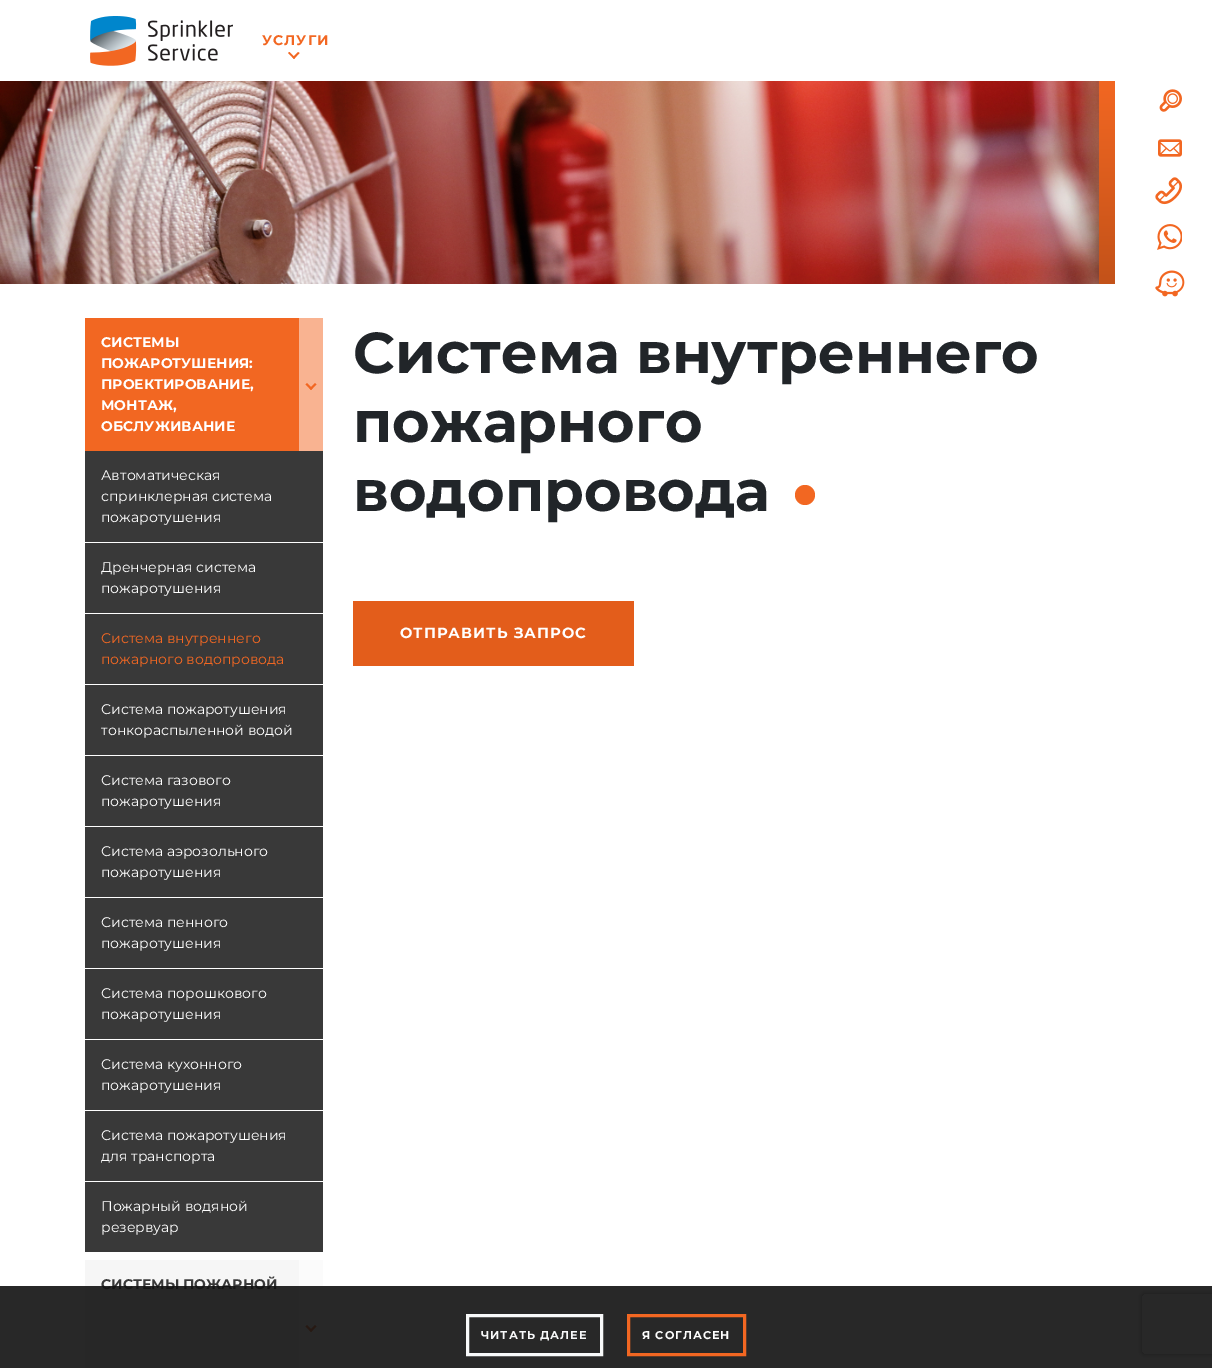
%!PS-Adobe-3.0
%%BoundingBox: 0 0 1212 1368
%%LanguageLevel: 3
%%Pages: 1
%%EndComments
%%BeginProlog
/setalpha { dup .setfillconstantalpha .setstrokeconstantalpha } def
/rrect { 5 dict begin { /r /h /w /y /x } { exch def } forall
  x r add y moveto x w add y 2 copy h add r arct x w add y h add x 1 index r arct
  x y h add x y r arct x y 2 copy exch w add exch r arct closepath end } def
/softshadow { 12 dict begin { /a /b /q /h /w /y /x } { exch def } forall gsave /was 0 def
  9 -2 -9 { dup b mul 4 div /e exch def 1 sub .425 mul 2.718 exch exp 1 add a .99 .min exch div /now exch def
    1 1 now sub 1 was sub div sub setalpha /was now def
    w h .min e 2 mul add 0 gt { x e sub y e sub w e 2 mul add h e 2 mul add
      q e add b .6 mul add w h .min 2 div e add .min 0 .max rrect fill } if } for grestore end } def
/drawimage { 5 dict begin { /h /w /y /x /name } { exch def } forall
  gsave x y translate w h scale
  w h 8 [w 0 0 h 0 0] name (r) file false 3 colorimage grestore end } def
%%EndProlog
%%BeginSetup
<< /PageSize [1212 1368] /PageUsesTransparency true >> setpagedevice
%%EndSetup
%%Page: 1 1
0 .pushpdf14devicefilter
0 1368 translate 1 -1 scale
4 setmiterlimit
1 setgray
0 0 1212 1368 rectfill
(images/1.raw) 90 16 143 50 drawimage
0.949 0.404 0.133 setrgbcolor
newpath 298 52 moveto 299.5 53 lineto 294 59 lineto 292.5 57.5 lineto closepath fill
newpath 289.5 52 moveto 295 57.5 lineto 294 59 lineto 288 53 lineto closepath fill
(images/2.raw) 1159 89 23 23 drawimage
(images/3.raw) 1158 139 24 18 drawimage
(images/4.raw) 1155 177 27 28 drawimage
(images/5.raw) 1157 224 25 26 drawimage
(images/6.raw) 1155 270 30 27 drawimage
(images/7.raw) 0 81 1099 203 drawimage
gsave newpath 1099 81 moveto 1115 81 lineto 1115 284 lineto 1099 284 lineto closepath clip newpath
<< /ShadingType 2 /ColorSpace /DeviceRGB /Coords [1107 81 1107 284] /Extend [true true] /Function << /FunctionType 2 /Domain [0 1] /C0 [0.949 0.404 0.133] /C1 [0.765 0.322 0.098] /N 1 >> >> shfill grestore
85 318 214 133 rectfill
0.976 0.702 0.569 setrgbcolor
299 318 24 133 rectfill
0.949 0.404 0.133 setrgbcolor
newpath 315 383 moveto 316.5 384.5 lineto 311 390 lineto 309.5 388.5 lineto closepath fill
newpath 307 383 moveto 312.5 388.5 lineto 311 390 lineto 305.5 384.5 lineto closepath fill
0.224 setgray
85 451 238 801 rectfill
1 setgray
85 542 238 1 rectfill
85 613 238 1 rectfill
85 684 238 1 rectfill
85 755 238 1 rectfill
85 826 238 1 rectfill
85 897 238 1 rectfill
85 968 238 1 rectfill
85 1039 238 1 rectfill
85 1110 238 1 rectfill
85 1181 238 1 rectfill
0.965 setgray
85 1260 214 108 rectfill
0.984 setgray
299 1260 24 108 rectfill
0.949 0.404 0.133 setrgbcolor
newpath 315 1325 moveto 316.5 1326.5 lineto 311 1332 lineto 309.5 1330.5 lineto closepath fill
newpath 307 1325 moveto 312.5 1330.5 lineto 311 1332 lineto 305.5 1326.5 lineto closepath fill
newpath 805 495 10 0 360 arc closepath fill
0.89 0.365 0.106 setrgbcolor
353 601 281 65 rectfill
gsave
newpath 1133 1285 moveto 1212 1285 lineto 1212 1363 lineto 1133 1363 lineto closepath 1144 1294 moveto 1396 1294 lineto 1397 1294 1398 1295 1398 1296 curveto 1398 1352 lineto 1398 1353 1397 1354 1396 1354 curveto 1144 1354 lineto 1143 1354 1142 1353 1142 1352 curveto 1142 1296 lineto 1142 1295 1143 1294 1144 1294 curveto closepath eoclip newpath
0.502 setgray
1142 1294 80 60 2 2.5 1 softshadow
grestore
/Montserrat-Bold [14 0 0 -14 0 0] selectfont
0.949 0.404 0.133 setrgbcolor
262 45 moveto 1 0 (УСЛУГИ) ashow
1 setgray
101 347 moveto (СИСТЕМЫ) show
101 368 moveto (ПОЖАРОТУШЕНИЯ:) show
101 389 moveto (ПРОЕКТИРОВАНИЕ,) show
101 410 moveto (МОНТАЖ,) show
101 431 moveto (ОБСЛУЖИВАНИЕ) show
/Montserrat-Regular [14 0 0 -14 0 0] selectfont
101 480 moveto (Автоматическая) show
101 501 moveto (спринклерная система) show
101 522 moveto (пожаротушения) show
101 572 moveto (Дренчерная система) show
101 593 moveto (пожаротушения) show
0.949 0.404 0.133 setrgbcolor
101 643 moveto (Система внутреннего) show
101 664 moveto (пожарного водопровода) show
1 setgray
101 714 moveto (Система пожаротушения) show
101 735 moveto (тонкораспыленной водой) show
101 785 moveto (Система газового) show
101 806 moveto (пожаротушения) show
101 856 moveto (Система аэрозольного) show
101 877 moveto (пожаротушения) show
101 927 moveto (Система пенного) show
101 948 moveto (пожаротушения) show
101 998 moveto (Система порошкового) show
101 1019 moveto (пожаротушения) show
101 1069 moveto (Система кухонного) show
101 1090 moveto (пожаротушения) show
101 1140 moveto (Система пожаротушения) show
101 1161 moveto (для транспорта) show
101 1211 moveto (Пожарный водяной) show
101 1232 moveto (резервуар) show
/Montserrat-Bold [14 0 0 -14 0 0] selectfont
0.224 setgray
101 1289 moveto (СИСТЕМЫ ПОЖАРНОЙ) show
/Montserrat-Bold [57.6 0 0 -57.6 0 0] selectfont
0.129 0.145 0.161 setrgbcolor
353 373 moveto (Система внутреннего) show
353 442 moveto (пожарного) show
353 511 moveto (водопровода) show
/Montserrat-Bold [14.75 0 0 -14.75 0 0] selectfont
1 setgray
400 638 moveto 1 0 (ОТПРАВИТЬ ЗАПРОС) ashow
0.9 setalpha
0.067 setgray
0 1286 1212 82 rectfill
1 setalpha
0.973 0.976 0.98 setrgbcolor
3 setlinewidth
467.5 1315.5 134 39 rectstroke
/Montserrat-Bold [11.25 0 0 -11.25 0 0] selectfont
481 1339 moveto 1 0 (ЧИТАТЬ ДАЛЕЕ) ashow
0.949 0.404 0.133 setrgbcolor
628.5 1315.5 116 39 rectstroke
1 setgray
642 1339 moveto 1 0 (Я СОГЛАСЕН) ashow
.poppdf14devicefilter showpage
%%EOF
